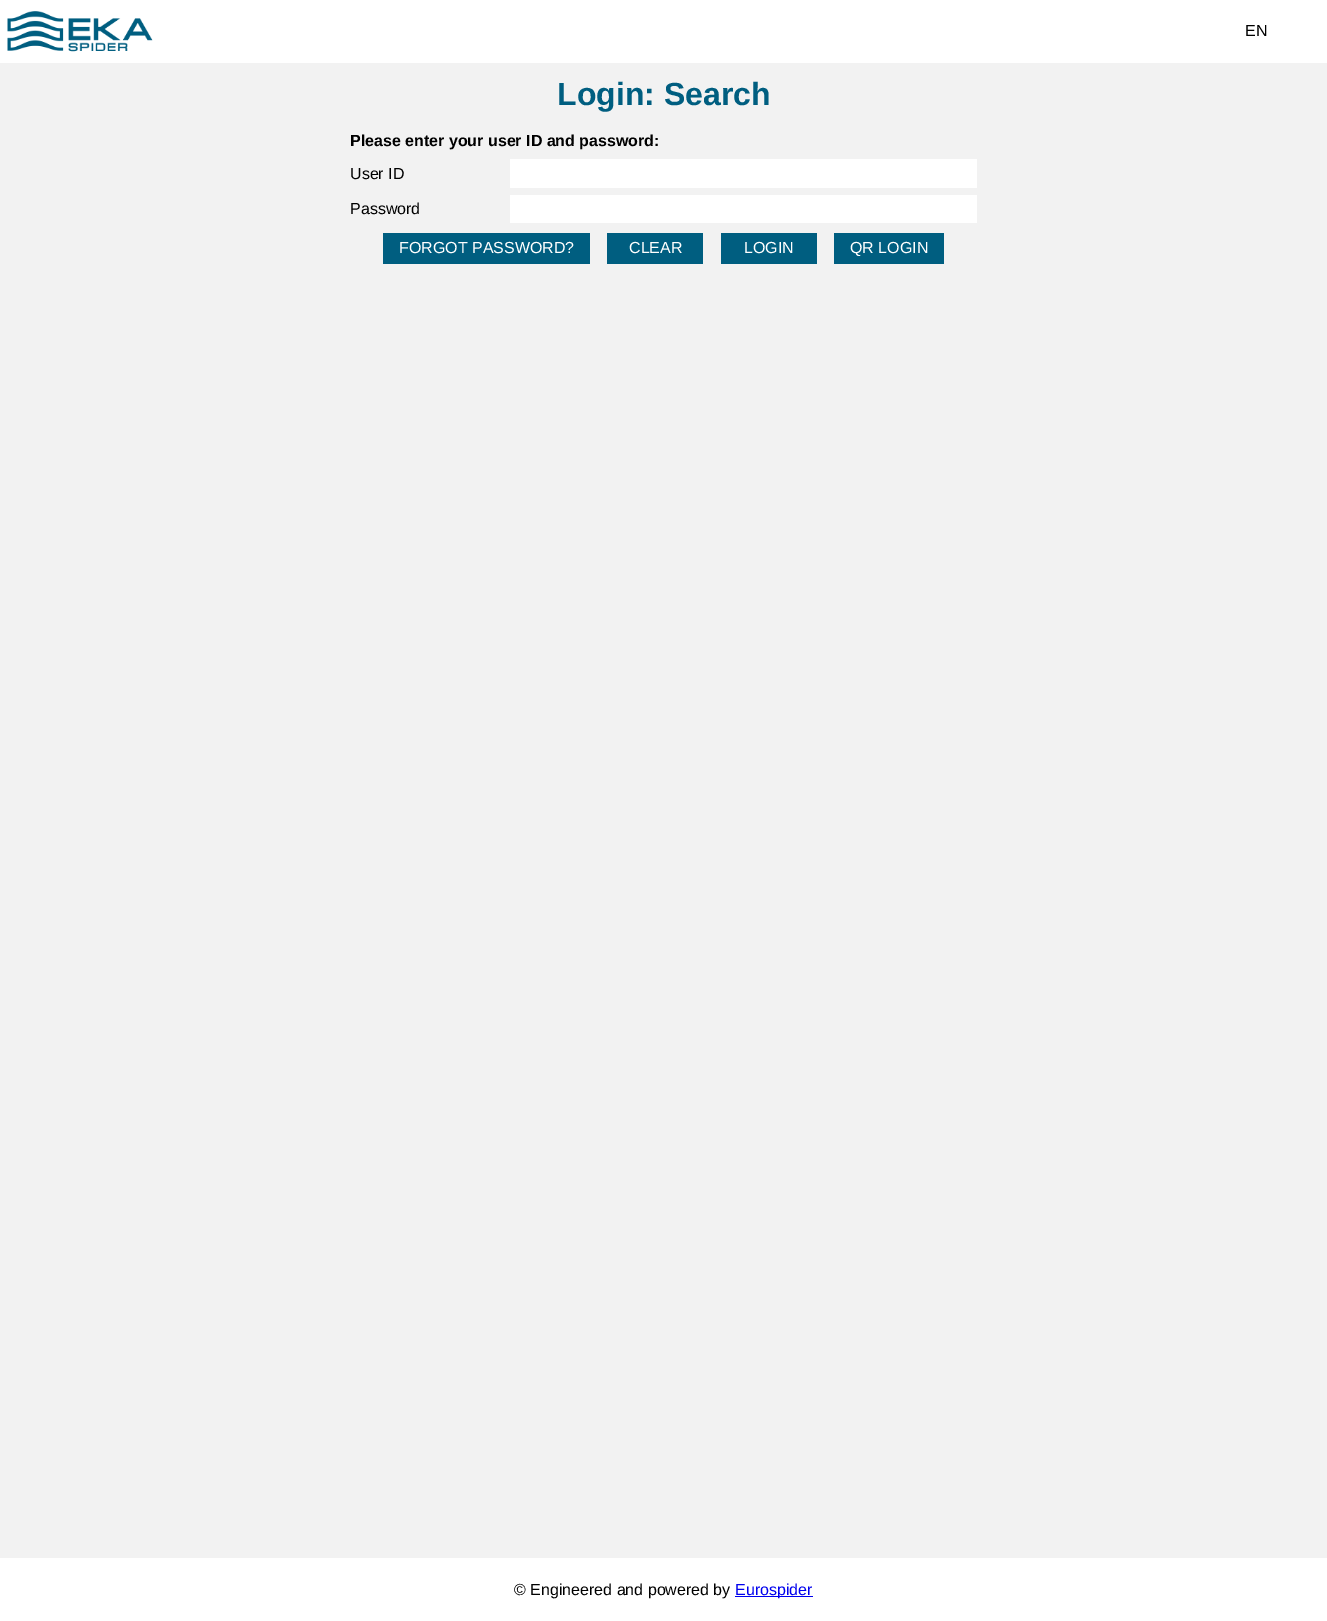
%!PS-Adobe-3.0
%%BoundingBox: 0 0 1327 1621
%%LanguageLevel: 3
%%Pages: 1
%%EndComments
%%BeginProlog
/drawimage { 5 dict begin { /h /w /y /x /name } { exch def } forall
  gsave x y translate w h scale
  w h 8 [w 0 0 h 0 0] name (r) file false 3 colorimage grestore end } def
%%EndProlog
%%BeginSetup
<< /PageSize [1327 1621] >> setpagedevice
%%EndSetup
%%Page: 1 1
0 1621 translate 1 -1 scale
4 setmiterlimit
1 setgray
0 0 1327 1621 rectfill
(images/1.raw) 7 11 146 41 drawimage
0.949 setgray
0 63 1327 1495 rectfill
1 setgray
510 159 467 29 rectfill
510 195 467 28 rectfill
0 0.369 0.502 setrgbcolor
383 233 207 31 rectfill
607 233 96 31 rectfill
721 233 96 31 rectfill
834 233 110 31 rectfill
0 0 0.933 setrgbcolor
735 1596 78 1 rectfill
/LiberationSans-Regular [16 0 0 -16 0 0] selectfont
0 setgray
1245 36 moveto (EN) show
/LiberationSans-Bold [32 0 0 -32 0 0] selectfont
0 0.369 0.502 setrgbcolor
557 105 moveto (Login: Search) show
/LiberationSans-Bold [16 0 0 -16 0 0] selectfont
0 setgray
350 146 moveto (Please enter your user ID and password:) show
/LiberationSans-Regular [16 0 0 -16 0 0] selectfont
350 179 moveto (User ID) show
350 214 moveto (Password) show
1 setgray
399 253 moveto (FORGOT PASSWORD?) show
629 253 moveto (CLEAR) show
744 253 moveto (LOGIN) show
850 253 moveto (QR LOGIN) show
0 setgray
514 1595 moveto (© Engineered and powered by) show
0 0 0.933 setrgbcolor
735 1595 moveto (Eurospider) show
showpage
%%EOF
